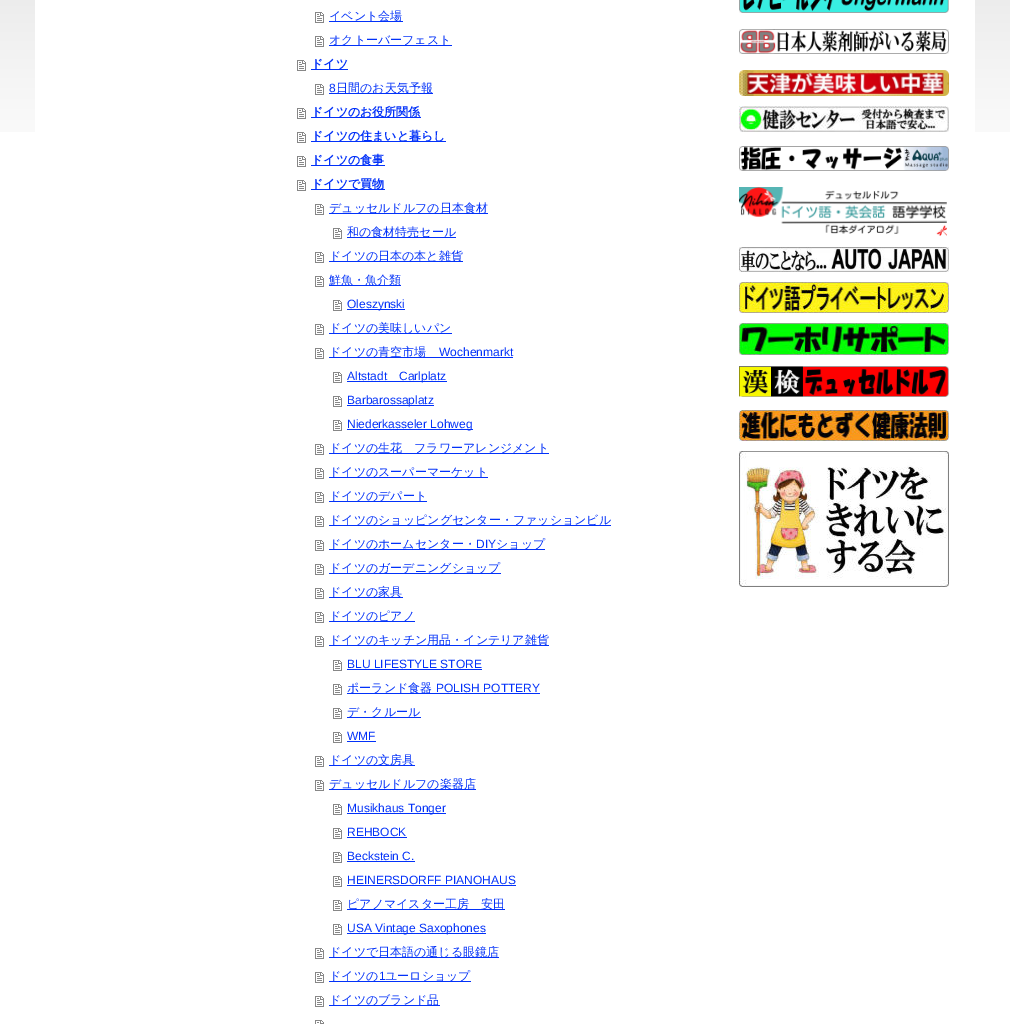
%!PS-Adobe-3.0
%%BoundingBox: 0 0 1010 1024
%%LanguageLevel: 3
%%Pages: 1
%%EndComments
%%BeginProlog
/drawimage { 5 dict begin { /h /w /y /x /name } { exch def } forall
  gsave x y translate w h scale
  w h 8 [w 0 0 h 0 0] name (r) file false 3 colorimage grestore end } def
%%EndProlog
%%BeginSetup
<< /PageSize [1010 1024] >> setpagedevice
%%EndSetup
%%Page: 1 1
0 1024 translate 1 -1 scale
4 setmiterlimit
1 setgray
0 0 1010 1024 rectfill
(images/1.raw) 0 0 1010 132 drawimage
35 0 940 132 rectfill
(images/2.raw) 315 12 9 11 drawimage
0.008 0.192 0.976 setrgbcolor
329 21 74 1 rectfill
(images/2.raw) 315 36 9 11 drawimage
329 45 123 1 rectfill
(images/2.raw) 297 60 9 11 drawimage
311 69 37 1 rectfill
(images/2.raw) 315 84 9 11 drawimage
329 93 104 1 rectfill
(images/2.raw) 297 108 9 11 drawimage
311 117 110 1 rectfill
(images/2.raw) 297 132 9 11 drawimage
311 141 135 1 rectfill
(images/2.raw) 297 156 9 11 drawimage
311 165 74 1 rectfill
(images/2.raw) 297 180 9 11 drawimage
311 189 74 1 rectfill
(images/2.raw) 315 204 9 11 drawimage
329 213 159 1 rectfill
(images/2.raw) 333 228 9 11 drawimage
347 237 109 1 rectfill
(images/2.raw) 315 252 9 11 drawimage
329 261 134 1 rectfill
(images/2.raw) 315 276 9 11 drawimage
329 285 72 1 rectfill
(images/2.raw) 333 300 9 11 drawimage
347 309 58 1 rectfill
(images/2.raw) 315 324 9 11 drawimage
329 333 123 1 rectfill
(images/2.raw) 315 348 9 11 drawimage
329 357 184 1 rectfill
(images/2.raw) 333 372 9 11 drawimage
347 381 100 1 rectfill
(images/2.raw) 333 396 9 11 drawimage
347 405 87 1 rectfill
(images/2.raw) 333 420 9 11 drawimage
347 429 126 1 rectfill
(images/2.raw) 315 444 9 11 drawimage
329 453 220 1 rectfill
(images/2.raw) 315 468 9 11 drawimage
329 477 159 1 rectfill
(images/2.raw) 315 492 9 11 drawimage
329 501 98 1 rectfill
(images/2.raw) 315 516 9 11 drawimage
329 525 282 1 rectfill
(images/2.raw) 315 540 9 11 drawimage
329 549 216 1 rectfill
(images/2.raw) 315 564 9 11 drawimage
329 573 172 1 rectfill
(images/2.raw) 315 588 9 11 drawimage
329 597 74 1 rectfill
(images/2.raw) 315 612 9 11 drawimage
329 621 86 1 rectfill
(images/2.raw) 315 636 9 11 drawimage
329 645 220 1 rectfill
(images/2.raw) 333 660 9 11 drawimage
347 669 135 1 rectfill
(images/2.raw) 333 684 9 11 drawimage
347 693 193 1 rectfill
(images/2.raw) 333 708 9 11 drawimage
347 717 74 1 rectfill
(images/2.raw) 333 732 9 11 drawimage
347 741 29 1 rectfill
(images/2.raw) 315 756 9 11 drawimage
329 765 86 1 rectfill
(images/2.raw) 315 780 9 11 drawimage
329 789 147 1 rectfill
(images/2.raw) 333 804 9 11 drawimage
347 813 99 1 rectfill
(images/2.raw) 333 828 9 11 drawimage
347 837 60 1 rectfill
(images/2.raw) 333 852 9 11 drawimage
347 861 68 1 rectfill
(images/2.raw) 333 876 9 11 drawimage
347 885 169 1 rectfill
(images/2.raw) 333 900 9 11 drawimage
347 909 158 1 rectfill
(images/2.raw) 333 924 9 11 drawimage
347 933 139 1 rectfill
(images/2.raw) 315 948 9 11 drawimage
329 957 170 1 rectfill
(images/2.raw) 315 972 9 11 drawimage
329 981 142 1 rectfill
(images/2.raw) 315 996 9 11 drawimage
329 1005 111 1 rectfill
(images/3.raw) 315 1020 9 4 drawimage
(images/4.raw) 739 0 210 13 drawimage
(images/5.raw) 739 29 210 25 drawimage
(images/6.raw) 739 70 210 26 drawimage
(images/7.raw) 739 106 210 26 drawimage
(images/8.raw) 739 146 210 25 drawimage
(images/9.raw) 739 187 208 49 drawimage
(images/10.raw) 739 247 210 25 drawimage
(images/11.raw) 739 282 210 31 drawimage
(images/12.raw) 739 323 210 32 drawimage
(images/13.raw) 739 366 210 31 drawimage
(images/14.raw) 739 410 210 31 drawimage
(images/15.raw) 739 451 210 136 drawimage
/WenQuanYiZenHei-Medium [12 0 0 -12 0 0] selectfont
329 20 moveto (イベント会場) show
329 44 moveto (オクトーバーフェスト) show
/WenQuanYiZenHei-Bold [12 0 0 -12 0 0] selectfont
311 68 moveto (ドイツ) show
/LiberationSans-Regular [12 0 0 -12 0 0] selectfont
329 92 moveto (8) show
/WenQuanYiZenHei-Medium [12 0 0 -12 0 0] selectfont
336 92 moveto (日間のお天気予報) show
/WenQuanYiZenHei-Bold [12 0 0 -12 0 0] selectfont
311 116 moveto (ドイツのお役所関係) show
311 140 moveto (ドイツの住まいと暮らし) show
311 164 moveto (ドイツの食事) show
311 188 moveto (ドイツで買物) show
/WenQuanYiZenHei-Medium [12 0 0 -12 0 0] selectfont
329 212 moveto (デュッセルドルフの日本食材) show
347 236 moveto (和の食材特売セール) show
329 260 moveto (ドイツの日本の本と雑貨) show
329 284 moveto (鮮魚・魚介類) show
/LiberationSans-Regular [12 0 0 -12 0 0] selectfont
347 308 moveto (Oleszynski) show
/WenQuanYiZenHei-Medium [12 0 0 -12 0 0] selectfont
329 332 moveto (ドイツの美味しいパン) show
329 356 moveto (ドイツの青空市場) show
/LiberationSans-Regular [12 0 0 -12 0 0] selectfont
439 356 moveto (Wochenmarkt) show
347 380 moveto (Altstadt) show
399 380 moveto (Carlplatz) show
347 404 moveto (Barbarossaplatz) show
347 428 moveto (Niederkasseler Lohweg) show
/WenQuanYiZenHei-Medium [12 0 0 -12 0 0] selectfont
329 452 moveto (ドイツの生花　フラワーアレンジメント) show
329 476 moveto (ドイツのスーパーマーケット) show
329 500 moveto (ドイツのデパート) show
329 524 moveto (ドイツのショッピングセンター・ファッションビル) show
329 548 moveto (ドイツのホームセンター・) show
/LiberationSans-Regular [12 0 0 -12 0 0] selectfont
476 548 moveto (DIY) show
/WenQuanYiZenHei-Medium [12 0 0 -12 0 0] selectfont
496 548 moveto (ショップ) show
329 572 moveto (ドイツのガーデニングショップ) show
329 596 moveto (ドイツの家具) show
329 620 moveto (ドイツのピアノ) show
329 644 moveto (ドイツのキッチン用品・インテリア雑貨) show
/LiberationSans-Regular [12 0 0 -12 0 0] selectfont
347 668 moveto (BLU LIFESTYLE STORE) show
/WenQuanYiZenHei-Medium [12 0 0 -12 0 0] selectfont
347 692 moveto (ポーランド食器) show
/LiberationSans-Regular [12 0 0 -12 0 0] selectfont
436 692 moveto (POLISH POTTERY) show
/WenQuanYiZenHei-Medium [12 0 0 -12 0 0] selectfont
347 716 moveto (デ・クルール) show
/LiberationSans-Regular [12 0 0 -12 0 0] selectfont
347 740 moveto (WMF) show
/WenQuanYiZenHei-Medium [12 0 0 -12 0 0] selectfont
329 764 moveto (ドイツの文房具) show
329 788 moveto (デュッセルドルフの楽器店) show
/LiberationSans-Regular [12 0 0 -12 0 0] selectfont
347 812 moveto (Musikhaus Tonger) show
347 836 moveto (REHBOCK) show
347 860 moveto (Beckstein C.) show
347 884 moveto (HEINERSDORFF PIANOHAUS) show
/WenQuanYiZenHei-Medium [12 0 0 -12 0 0] selectfont
347 908 moveto (ピアノマイスター工房　安田) show
/LiberationSans-Regular [12 0 0 -12 0 0] selectfont
347 932 moveto (USA Vintage Saxophones) show
/WenQuanYiZenHei-Medium [12 0 0 -12 0 0] selectfont
329 956 moveto (ドイツで日本語の通じる眼鏡店) show
329 980 moveto (ドイツの) show
/LiberationSans-Regular [12 0 0 -12 0 0] selectfont
379 980 moveto (1) show
/WenQuanYiZenHei-Medium [12 0 0 -12 0 0] selectfont
385 980 moveto (ユーロショップ) show
329 1004 moveto (ドイツのブランド品) show
showpage
%%EOF
